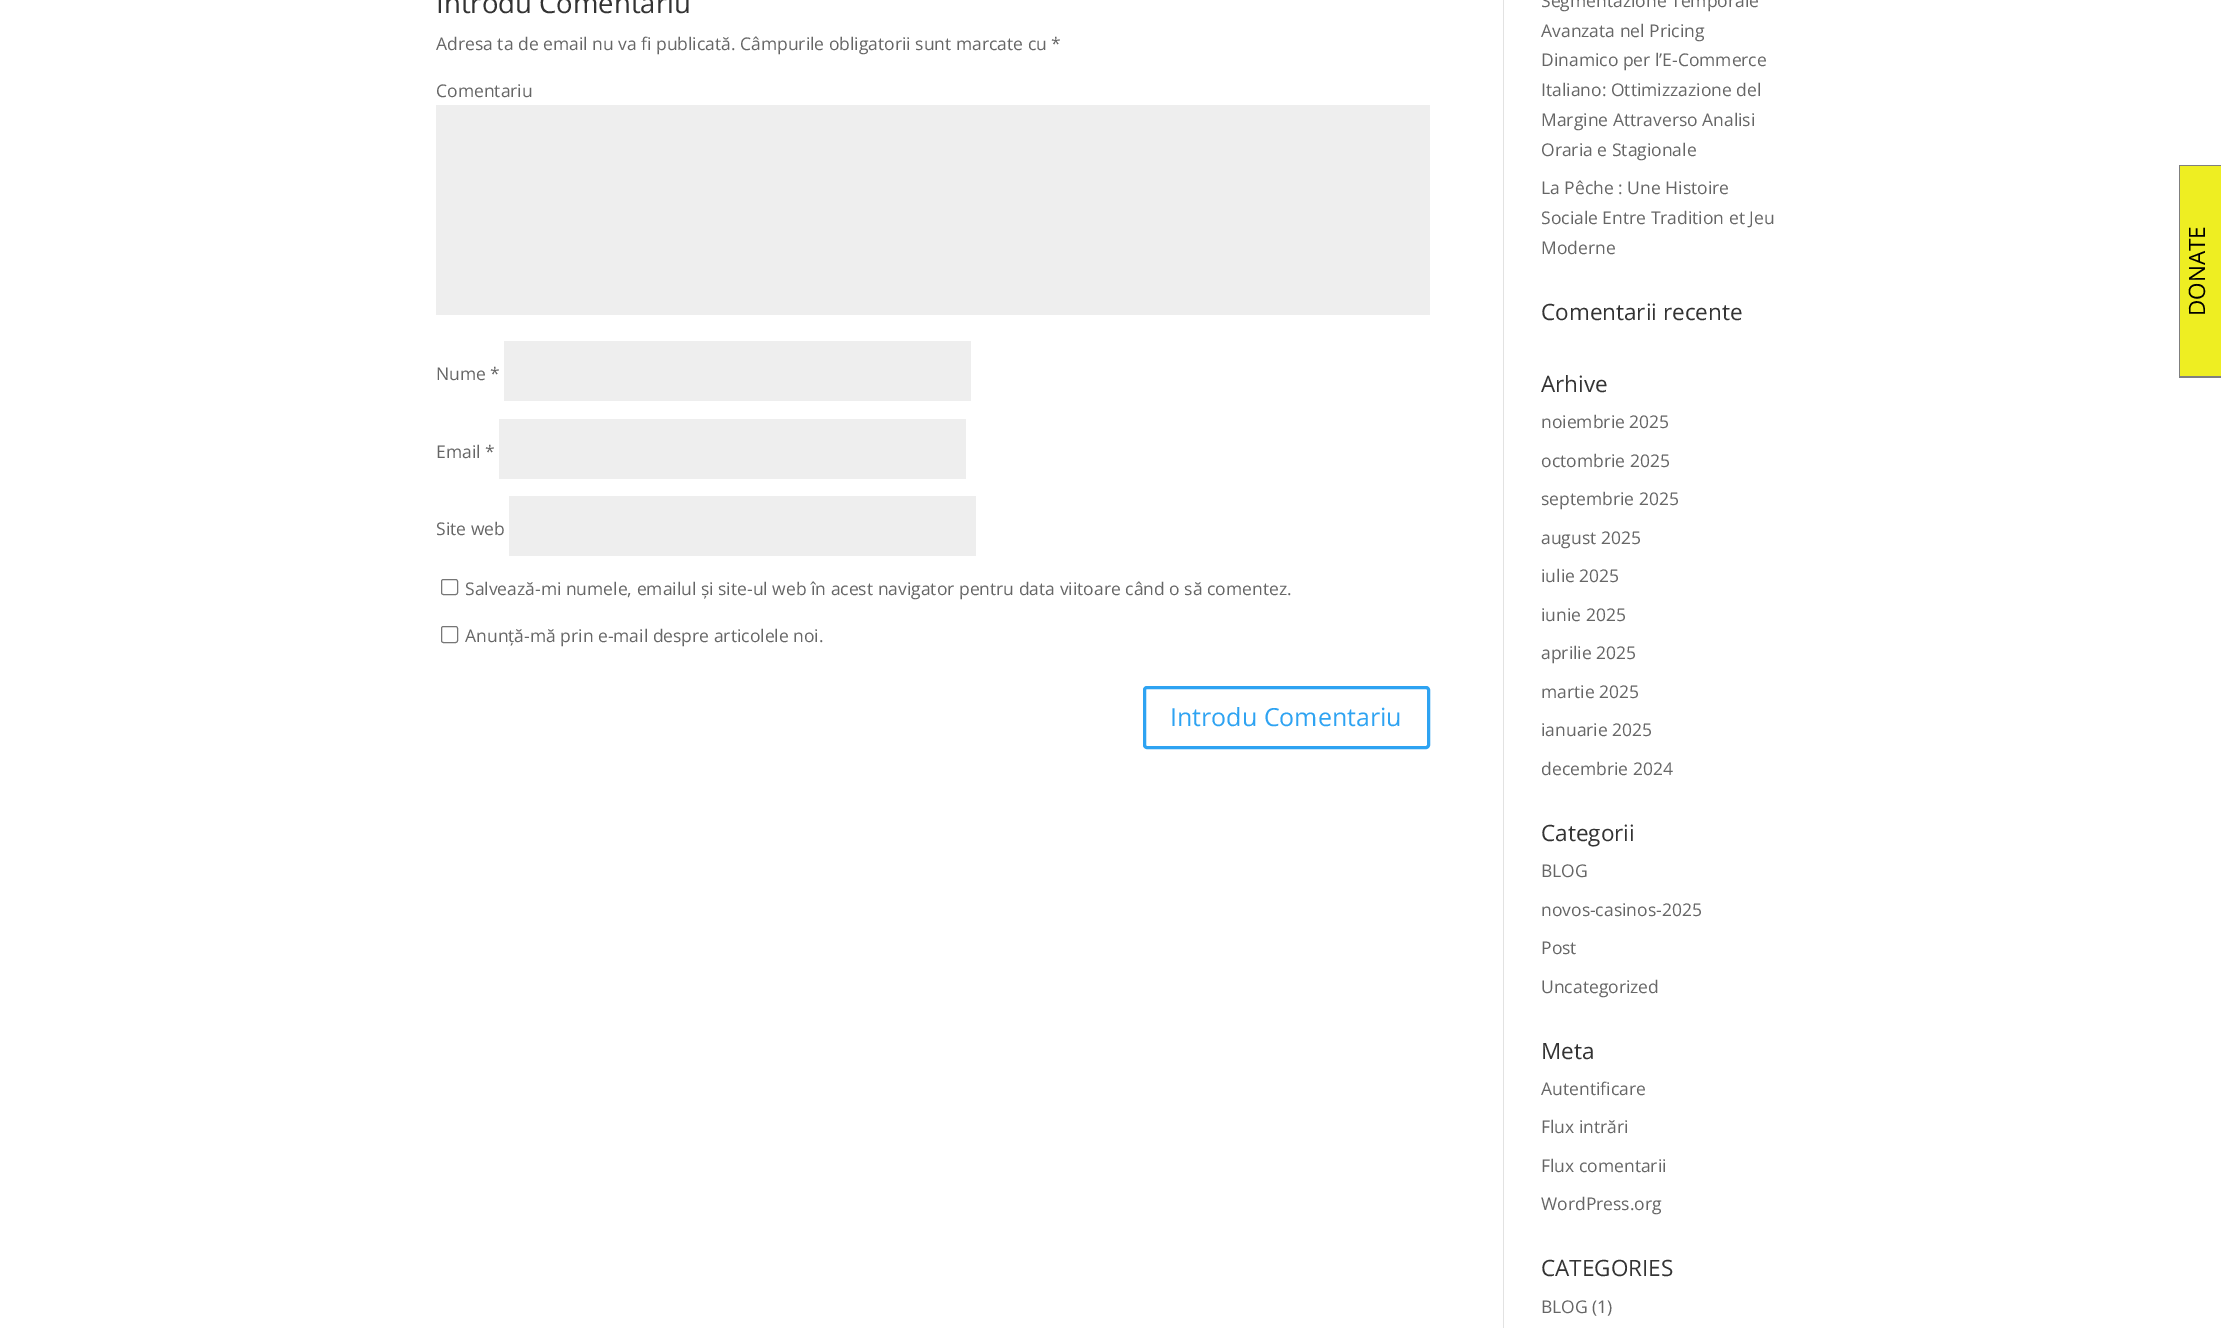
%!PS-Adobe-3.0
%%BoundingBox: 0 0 2221 1328
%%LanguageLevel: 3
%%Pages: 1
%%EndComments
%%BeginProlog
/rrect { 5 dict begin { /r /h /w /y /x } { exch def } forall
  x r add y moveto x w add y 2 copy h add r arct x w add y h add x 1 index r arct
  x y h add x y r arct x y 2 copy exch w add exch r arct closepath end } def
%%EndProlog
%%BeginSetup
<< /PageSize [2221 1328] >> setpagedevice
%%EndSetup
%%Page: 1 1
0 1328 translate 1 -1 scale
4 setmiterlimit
1 setgray
0 0 2221 1328 rectfill
0.933 setgray
436 105 994 210 rectfill
504 341 467 60 rectfill
499 419 467 60 rectfill
509 496 467 60 rectfill
0.463 setgray
441.5 579.5 16 15 2 rrect stroke
441.5 626.5 16 16 2 rrect stroke
0.18 0.639 0.949 setrgbcolor
3 setlinewidth
1144.5 687.5 284 60 2.5 rrect stroke
0.886 setgray
1503 0 1 1328 rectfill
0.933 0.933 0.133 setrgbcolor
2180 166 41 210 rectfill
0.498 setgray
2179 165 1 213 rectfill
2179 165 42 1 rectfill
2179 376 42 2 rectfill
/OpenSans-Regular [27.5 0 0 -27.5 0 0] selectfont
0.2 setgray
436 13 moveto (Introdu Comentariu) show
/OpenSans-Regular [17.5 0 0 -17.5 0 0] selectfont
0.4 setgray
436 50 moveto (Adresa ta de email nu va fi publicată. Câmpurile obligatorii sunt marcate cu *) show
436 97 moveto (Comentariu) show
436 380 moveto (Nume *) show
436 458 moveto (Email *) show
436 535 moveto (Site web) show
465 595 moveto (Salvează-mi numele, emailul și site-ul web în acest navigator pentru data viitoare când o să comentez.) show
465 642 moveto (Anunță-mă prin e-mail despre articolele noi.) show
/OpenSans-Regular [25 0 0 -25 0 0] selectfont
0.18 0.639 0.949 setrgbcolor
1170 726 moveto (Introdu Comentariu) show
/OpenSans-Regular [17.5 0 0 -17.5 0 0] selectfont
0.4 setgray
1541 7 moveto (Segmentazione Temporale) show
1541 37 moveto (Avanzata nel Pricing) show
1541 66 moveto (Dinamico per l’E-Commerce) show
1541 96 moveto (Italiano: Ottimizzazione del) show
1541 126 moveto (Margine Attraverso Analisi) show
1541 156 moveto (Oraria e Stagionale) show
1541 194 moveto (La Pêche : Une Histoire) show
1541 224 moveto (Sociale Entre Tradition et Jeu) show
1541 254 moveto (Moderne) show
/OpenSans-Regular [22.5 0 0 -22.5 0 0] selectfont
0.2 setgray
1541 320 moveto (Comentarii recente) show
1541 392 moveto (Arhive) show
/OpenSans-Regular [17.5 0 0 -17.5 0 0] selectfont
0.4 setgray
1541 428 moveto (noiembrie 2025) show
1541 467 moveto (octombrie 2025) show
1541 505 moveto (septembrie 2025) show
1541 544 moveto (august 2025) show
1541 582 moveto (iulie 2025) show
1541 621 moveto (iunie 2025) show
1541 659 moveto (aprilie 2025) show
1541 698 moveto (martie 2025) show
1541 736 moveto (ianuarie 2025) show
1541 775 moveto (decembrie 2024) show
/OpenSans-Regular [22.5 0 0 -22.5 0 0] selectfont
0.2 setgray
1541 841 moveto (Categorii) show
/OpenSans-Regular [17.5 0 0 -17.5 0 0] selectfont
0.4 setgray
1541 877 moveto (BLOG) show
1541 916 moveto (novos-casinos-2025) show
1541 954 moveto (Post) show
1541 993 moveto (Uncategorized) show
/OpenSans-Regular [22.5 0 0 -22.5 0 0] selectfont
0.2 setgray
1541 1059 moveto (Meta) show
/OpenSans-Regular [17.5 0 0 -17.5 0 0] selectfont
0.4 setgray
1541 1095 moveto (Autentificare) show
1541 1133 moveto (Flux intrări) show
1541 1172 moveto (Flux comentarii) show
1541 1210 moveto (WordPress.org) show
/OpenSans-Regular [22.5 0 0 -22.5 0 0] selectfont
0.2 setgray
1541 1276 moveto (CATEGORIES) show
/OpenSans-Regular [17.5 0 0 -17.5 0 0] selectfont
0.4 setgray
1541 1313 moveto (BLOG \(1\)) show
/OpenSans-Regular [22.5 0 0 -22.5 0 0] selectfont
0 setgray
gsave 2205 316 translate -90 rotate 0 0 moveto (DONATE) show grestore
showpage
%%EOF
